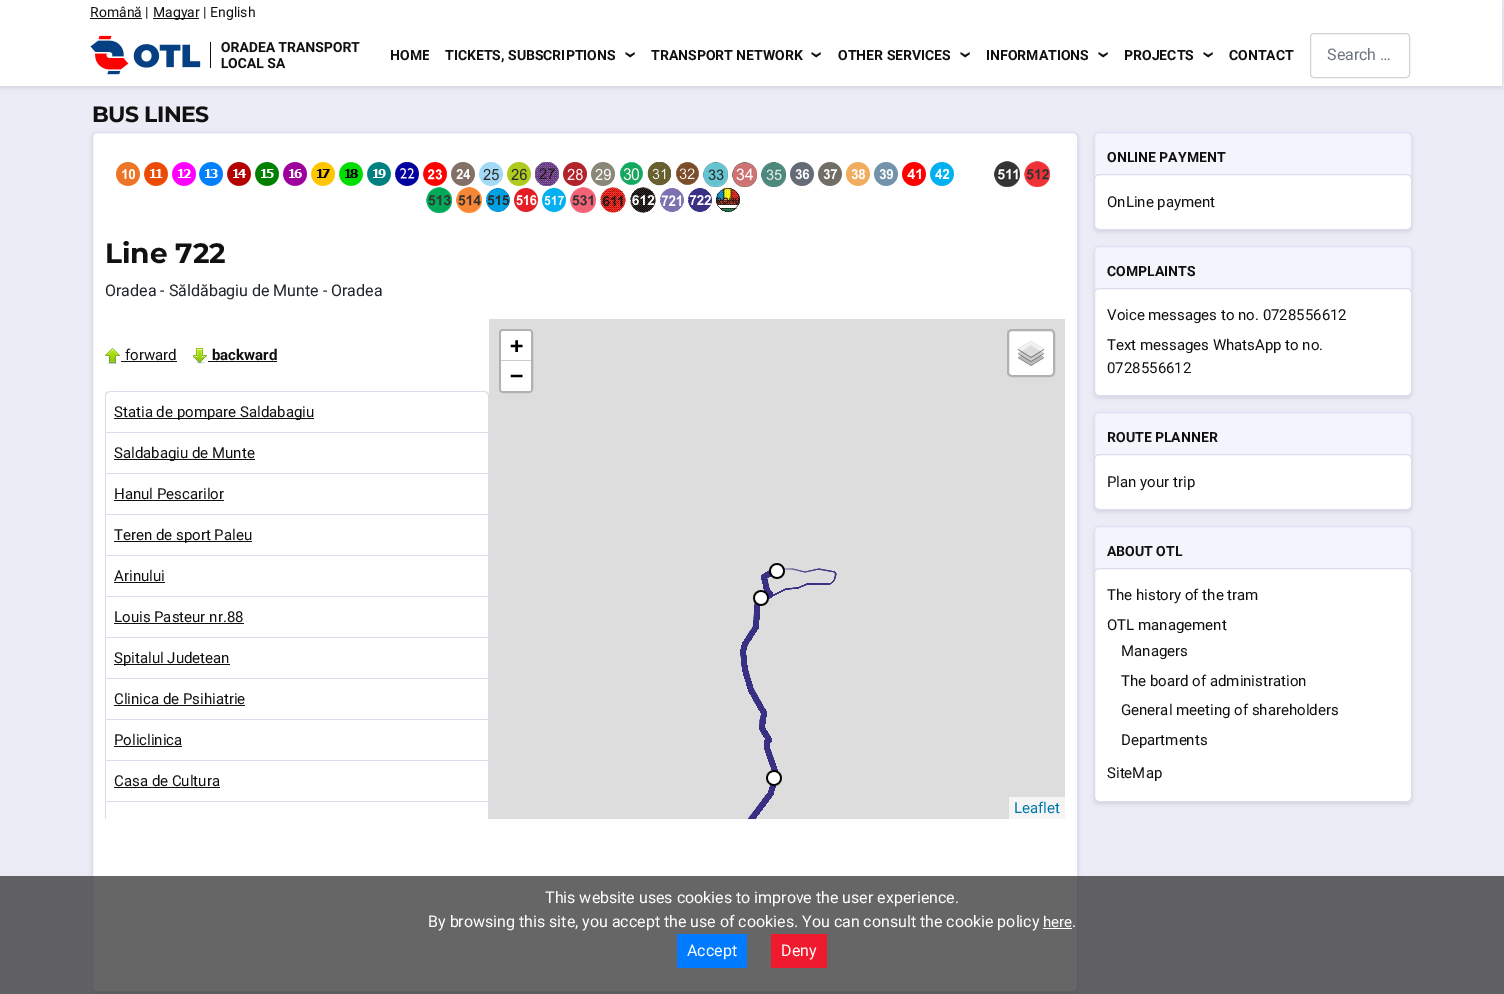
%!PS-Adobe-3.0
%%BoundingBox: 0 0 1504 994
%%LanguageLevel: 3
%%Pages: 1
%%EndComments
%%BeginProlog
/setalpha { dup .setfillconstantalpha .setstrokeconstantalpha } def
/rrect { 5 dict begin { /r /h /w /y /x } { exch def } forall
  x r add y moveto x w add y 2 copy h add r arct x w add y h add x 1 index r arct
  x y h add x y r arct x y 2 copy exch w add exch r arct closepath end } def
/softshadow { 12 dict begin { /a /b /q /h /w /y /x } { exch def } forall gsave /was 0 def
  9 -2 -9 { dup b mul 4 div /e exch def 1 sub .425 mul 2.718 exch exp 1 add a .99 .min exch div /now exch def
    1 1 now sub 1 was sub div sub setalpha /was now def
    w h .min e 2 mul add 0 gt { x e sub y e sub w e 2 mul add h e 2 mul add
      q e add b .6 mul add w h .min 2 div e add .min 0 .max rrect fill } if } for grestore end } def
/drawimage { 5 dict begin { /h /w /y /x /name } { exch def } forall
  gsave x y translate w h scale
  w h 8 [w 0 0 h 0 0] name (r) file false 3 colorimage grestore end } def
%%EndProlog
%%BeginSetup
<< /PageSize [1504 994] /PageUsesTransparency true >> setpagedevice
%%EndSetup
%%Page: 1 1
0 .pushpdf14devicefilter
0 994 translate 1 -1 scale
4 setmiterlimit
0.922 0.925 0.961 setrgbcolor
0 0 1504 994 rectfill
0.224 0.22 0.267 setrgbcolor
-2 2 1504 86 0 2 0.15 softshadow
1 setgray
0 0 1502 86 rectfill
0.067 setgray
90 18 52 1 rectfill
153 18 46 1 rectfill
(images/1.raw) 90 35 270 40 drawimage
0.808 0.831 0.855 setrgbcolor
1310.5 33.5 99 44 3.5 rrect stroke
0.224 0.22 0.267 setrgbcolor
92 134 986 860 5 2 0.15 softshadow
1 setgray
92.5 132.5 985 859 4.5 rrect gsave fill grestore
0.859 0.867 0.925 setrgbcolor
stroke
(images/2.raw) 116 162 24 24 drawimage
(images/3.raw) 144 162 24 24 drawimage
(images/4.raw) 172 162 24 24 drawimage
(images/5.raw) 199 162 24 24 drawimage
(images/6.raw) 227 162 24 24 drawimage
(images/7.raw) 255 162 24 24 drawimage
(images/8.raw) 283 162 24 24 drawimage
(images/9.raw) 311 162 24 24 drawimage
(images/10.raw) 339 162 24 24 drawimage
(images/11.raw) 367 162 24 24 drawimage
(images/12.raw) 395 162 24 24 drawimage
(images/13.raw) 423 162 24 24 drawimage
(images/14.raw) 451 162 24 24 drawimage
(images/15.raw) 479 162 24 24 drawimage
(images/16.raw) 507 162 24 24 drawimage
(images/17.raw) 535 162 24 24 drawimage
(images/18.raw) 563 162 24 24 drawimage
(images/19.raw) 591 162 24 24 drawimage
(images/20.raw) 620 162 23 23 drawimage
(images/21.raw) 647 162 24 24 drawimage
(images/22.raw) 676 162 23 23 drawimage
(images/23.raw) 703 162 25 25 drawimage
(images/24.raw) 732 162 25 25 drawimage
(images/25.raw) 761 162 25 25 drawimage
(images/26.raw) 790 162 24 24 drawimage
(images/27.raw) 818 162 24 24 drawimage
(images/28.raw) 846 162 24 24 drawimage
(images/29.raw) 874 162 24 24 drawimage
(images/30.raw) 902 162 24 24 drawimage
(images/31.raw) 930 162 24 24 drawimage
(images/32.raw) 994 161 26 26 drawimage
(images/33.raw) 1024 161 26 26 drawimage
(images/34.raw) 426 187 26 26 drawimage
(images/35.raw) 456 187 26 26 drawimage
(images/36.raw) 486 188 24 24 drawimage
(images/37.raw) 514 188 24 24 drawimage
(images/38.raw) 542 188 24 24 drawimage
(images/39.raw) 570 187 26 26 drawimage
(images/40.raw) 600 187 26 26 drawimage
(images/41.raw) 630 187 26 26 drawimage
(images/42.raw) 660 188 24 24 drawimage
(images/43.raw) 688 188 24 24 drawimage
(images/44.raw) 716 188 24 24 drawimage
(images/45.raw) 105 348 15 16 drawimage
0.067 setgray
121 361 56 1 rectfill
(images/46.raw) 193 348 14 16 drawimage
208 361 69 1 rectfill
0.859 0.867 0.925 setrgbcolor
newpath 110 391 moveto 484 391 lineto 487 391 489 393 489 396 curveto 489 432 lineto 105 432 lineto 105 396 lineto 105 393 107 391 110 391 curveto closepath 110 392 moveto 484 392 lineto 486 392 488 394 488 396 curveto 488 432 lineto 106 432 lineto 106 396 lineto 106 394 108 392 110 392 curveto closepath eofill
0.067 setgray
114 418 200 1 rectfill
0.859 0.867 0.925 setrgbcolor
105 432 384 1 rectfill
488 432 1 41 rectfill
105 432 1 41 rectfill
0.067 setgray
114 459 141 1 rectfill
0.859 0.867 0.925 setrgbcolor
105 473 384 1 rectfill
488 473 1 41 rectfill
105 473 1 41 rectfill
0.067 setgray
114 500 110 1 rectfill
0.859 0.867 0.925 setrgbcolor
105 514 384 1 rectfill
488 514 1 41 rectfill
105 514 1 41 rectfill
0.067 setgray
114 541 138 1 rectfill
0.859 0.867 0.925 setrgbcolor
105 555 384 1 rectfill
488 555 1 41 rectfill
105 555 1 41 rectfill
0.067 setgray
114 582 51 1 rectfill
0.859 0.867 0.925 setrgbcolor
105 596 384 1 rectfill
488 596 1 41 rectfill
105 596 1 41 rectfill
0.067 setgray
114 623 130 1 rectfill
0.859 0.867 0.925 setrgbcolor
105 637 384 1 rectfill
488 637 1 41 rectfill
105 637 1 41 rectfill
0.067 setgray
114 664 116 1 rectfill
0.859 0.867 0.925 setrgbcolor
105 678 384 1 rectfill
488 678 1 41 rectfill
105 678 1 41 rectfill
0.067 setgray
114 705 131 1 rectfill
0.859 0.867 0.925 setrgbcolor
105 719 384 1 rectfill
488 719 1 41 rectfill
105 719 1 41 rectfill
0.067 setgray
114 746 68 1 rectfill
0.859 0.867 0.925 setrgbcolor
105 760 384 1 rectfill
488 760 1 41 rectfill
105 760 1 41 rectfill
0.067 setgray
114 787 106 1 rectfill
0.859 0.867 0.925 setrgbcolor
105 801 384 1 rectfill
488 801 1 18 rectfill
105 801 1 18 rectfill
0.867 setgray
489 319 576 500 rectfill
0.694 setgray
2 setlinewidth
500 330 32 62 3 rrect stroke
1 setgray
newpath 503 331 moveto 529 331 lineto 530 331 531 332 531 333 curveto 531 361 lineto 501 361 lineto 501 333 lineto 501 332 502 331 503 331 curveto closepath fill
0.8 setgray
501 360 30 1 rectfill
1 setgray
newpath 501 361 moveto 531 361 lineto 531 389 lineto 531 390 530 391 529 391 curveto 503 391 lineto 502 391 501 390 501 389 curveto closepath fill
1008 330 46 46 4 rrect gsave fill grestore
0.694 setgray
stroke
(images/47.raw) 1018 341 26 25 drawimage
0.961 setgray
1009 797 56 22 rectfill
(images/51.raw) 740 568 97 251 drawimage
(images/48.raw) 769 563 16 16 drawimage
(images/49.raw) 753 590 16 16 drawimage
(images/50.raw) 766 770 16 16 drawimage
0.224 0.22 0.267 setrgbcolor
1094 134 318 98 5 2 0.15 softshadow
0.953 0.957 0.988 setrgbcolor
1094.5 132.5 317 97 4.5 rrect gsave fill grestore
0.871 0.878 0.961 setrgbcolor
1 setlinewidth
stroke
1 setgray
1094.5 174.5 317 55 4.5 rrect gsave fill grestore
0.859 0.867 0.925 setrgbcolor
stroke
0.224 0.22 0.267 setrgbcolor
1094 248 318 150 5 2 0.15 softshadow
0.953 0.957 0.988 setrgbcolor
1094.5 246.5 317 149 4.5 rrect gsave fill grestore
0.871 0.878 0.961 setrgbcolor
stroke
1 setgray
1094.5 288.5 317 107 4.5 rrect gsave fill grestore
0.859 0.867 0.925 setrgbcolor
stroke
0.224 0.22 0.267 setrgbcolor
1094 414 318 98 5 2 0.15 softshadow
0.953 0.957 0.988 setrgbcolor
1094.5 412.5 317 97 4.5 rrect gsave fill grestore
0.871 0.878 0.961 setrgbcolor
stroke
1 setgray
1094.5 454.5 317 55 4.5 rrect gsave fill grestore
0.859 0.867 0.925 setrgbcolor
stroke
0.224 0.22 0.267 setrgbcolor
1094 528 318 276 5 2 0.15 softshadow
0.953 0.957 0.988 setrgbcolor
1094.5 526.5 317 275 4.5 rrect gsave fill grestore
0.871 0.878 0.961 setrgbcolor
stroke
1 setgray
1094.5 568.5 317 233 4.5 rrect gsave fill grestore
0.859 0.867 0.925 setrgbcolor
stroke
0.75 setalpha
0.2 setgray
0 876 1504 118 rectfill
1 setalpha
1 setgray
1043 928 29 1 rectfill
0 0.482 1 setrgbcolor
677 934 70 34 rectfill
0.937 0.102 0.176 setrgbcolor
771 934 56 34 rectfill
/Roboto-Regular [14 0 0 -14 0 0] selectfont
0.067 setgray
90 17 moveto (Română |) show
153 17 moveto (Magyar |) show
210 17 moveto (English) show
gsave
390 45 39 21 rectclip
/Roboto-Bold [14 0 0 -14 0 0] selectfont
390 60 moveto (HOME) show
grestore
/Roboto-Bold [14 0 0 -14 0 0] selectfont
445 60 moveto (TICKETS, SUBSCRIPTIONS) show
/Roboto-Bold [24 0 0 -24 0 0] selectfont
gsave 624 51 translate 90 rotate 0 0 moveto (›) show grestore
/Roboto-Bold [14 0 0 -14 0 0] selectfont
651 60 moveto (TRANSPORT NETWORK) show
/Roboto-Bold [24 0 0 -24 0 0] selectfont
gsave 810 51 translate 90 rotate 0 0 moveto (›) show grestore
/Roboto-Bold [14 0 0 -14 0 0] selectfont
838 60 moveto (OTHER SERVICES) show
/Roboto-Bold [24 0 0 -24 0 0] selectfont
gsave 959 51 translate 90 rotate 0 0 moveto (›) show grestore
/Roboto-Bold [14 0 0 -14 0 0] selectfont
986 60 moveto (INFORMATIONS) show
/Roboto-Bold [24 0 0 -24 0 0] selectfont
gsave 1097 51 translate 90 rotate 0 0 moveto (›) show grestore
/Roboto-Bold [14 0 0 -14 0 0] selectfont
1124 60 moveto (PROJECTS) show
/Roboto-Bold [24 0 0 -24 0 0] selectfont
gsave 1202 51 translate 90 rotate 0 0 moveto (›) show grestore
/Roboto-Bold [14 0 0 -14 0 0] selectfont
1229 60 moveto (CONTACT) show
/Roboto-Regular [16 0 0 -16 0 0] selectfont
0.427 0.459 0.494 setrgbcolor
1327 60 moveto (Search …) show
/Montserrat-Bold [22 0 0 -22 0 0] selectfont
0.067 setgray
92 122 moveto -0.5 0 (BUS LINES) ashow
/Montserrat-Bold [28 0 0 -28 0 0] selectfont
105 263 moveto (Line 722) show
/Roboto-Regular [16 0 0 -16 0 0] selectfont
0.133 0.149 0.165 setrgbcolor
105 296 moveto (Oradea - Săldăbagiu de Munte - Oradea) show
/Roboto-Regular [15 0 0 -15 0 0] selectfont
0.067 setgray
125 360 moveto (forward) show
/Roboto-Bold [15 0 0 -15 0 0] selectfont
212 360 moveto (backward) show
/Roboto-Regular [15 0 0 -15 0 0] selectfont
114 417 moveto (Statia de pompare Saldabagiu) show
114 458 moveto (Saldabagiu de Munte) show
114 499 moveto (Hanul Pescarilor) show
114 540 moveto (Teren de sport Paleu) show
114 581 moveto (Arinului) show
114 622 moveto (Louis Pasteur nr.88) show
114 663 moveto (Spitalul Judetean) show
114 704 moveto (Clinica de Psihiatrie) show
114 745 moveto (Policlinica) show
114 786 moveto (Casa de Cultura) show
/DejaVuSansMono-Bold [22 0 0 -22 0 0] selectfont
0 setgray
510 353 moveto (+) show
510 383 moveto (−) show
/Roboto-Regular [15 0 0 -15 0 0] selectfont
0 0.471 0.659 setrgbcolor
1014 813 moveto (Leaflet) show
/Roboto-Bold [14 0 0 -14 0 0] selectfont
0.067 setgray
1107 162 moveto (ONLINE PAYMENT) show
/Roboto-Regular [15 0 0 -15 0 0] selectfont
1107 207 moveto (OnLine payment) show
/Roboto-Bold [14 0 0 -14 0 0] selectfont
1107 276 moveto (COMPLAINTS) show
/Roboto-Regular [15 0 0 -15 0 0] selectfont
1107 320 moveto (Voice messages to no. 0728556612) show
1107 350 moveto (Text messages WhatsApp to no.) show
1107 373 moveto (0728556612) show
/Roboto-Bold [14 0 0 -14 0 0] selectfont
1107 442 moveto (ROUTE PLANNER) show
/Roboto-Regular [15 0 0 -15 0 0] selectfont
1107 487 moveto (Plan your trip) show
/Roboto-Bold [14 0 0 -14 0 0] selectfont
1107 556 moveto (ABOUT OTL) show
/Roboto-Regular [15 0 0 -15 0 0] selectfont
1107 600 moveto (The history of the tram) show
1107 630 moveto (OTL management) show
1121 656 moveto (Managers) show
1121 686 moveto (The board of administration) show
1121 715 moveto (General meeting of shareholders) show
1121 745 moveto (Departments) show
1107 778 moveto (SiteMap) show
/Roboto-Regular [16 0 0 -16 0 0] selectfont
1 setgray
545 903 moveto (This website uses cookies to improve the user experience.) show
428 927 moveto (By browsing this site, you accept the use of cookies. You can consult the cookie policy) show
/Roboto-Regular [15 0 0 -15 0 0] selectfont
1043 927 moveto (here) show
/Roboto-Regular [16 0 0 -16 0 0] selectfont
1072 927 moveto (.) show
687 956 moveto (Accept) show
781 956 moveto (Deny) show
.poppdf14devicefilter showpage
%%EOF
